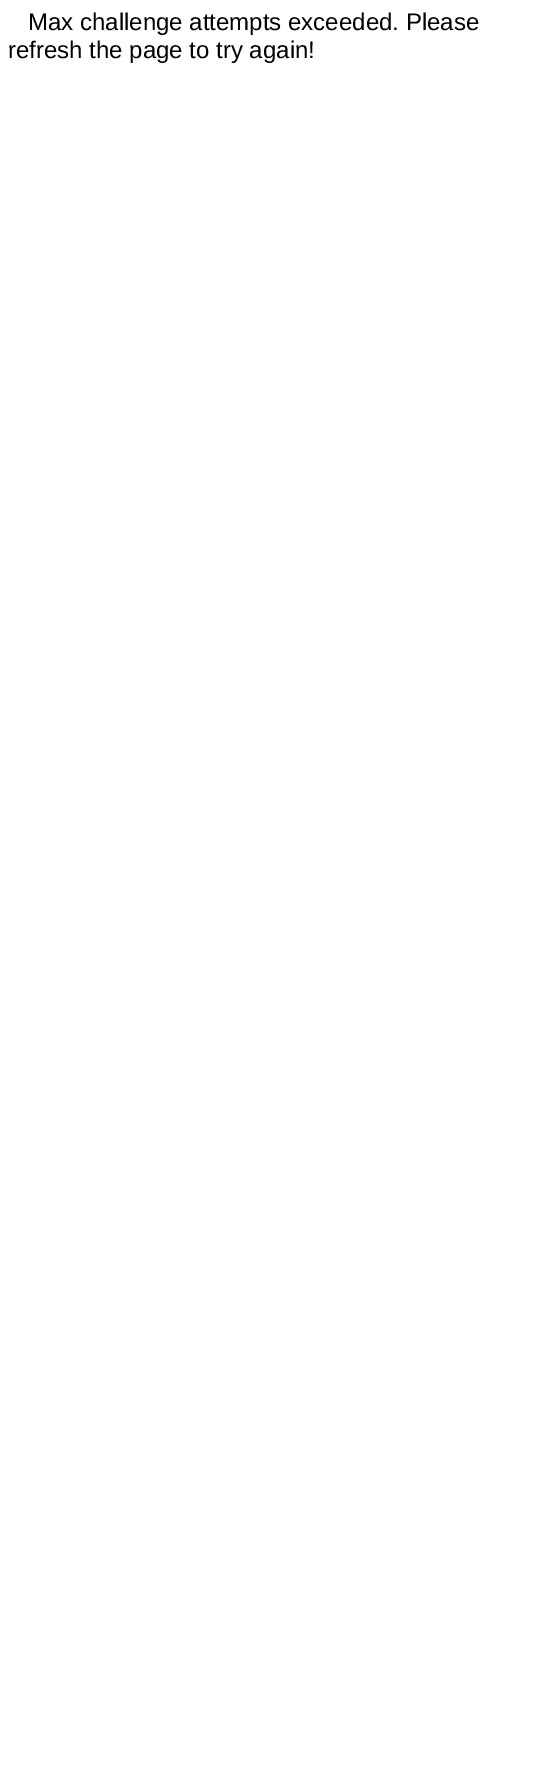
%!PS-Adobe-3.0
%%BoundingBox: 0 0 543 1775
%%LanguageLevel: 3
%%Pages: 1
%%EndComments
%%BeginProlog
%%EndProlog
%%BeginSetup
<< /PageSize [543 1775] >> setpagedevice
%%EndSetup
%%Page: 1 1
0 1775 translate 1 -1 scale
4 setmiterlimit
1 setgray
0 0 543 1775 rectfill
/LiberationSans-Regular [24 0 0 -24 0 0] selectfont
0 setgray
28 30 moveto (Max challenge attempts exceeded. Please) show
8 58 moveto (refresh the page to try again!) show
showpage
%%EOF
